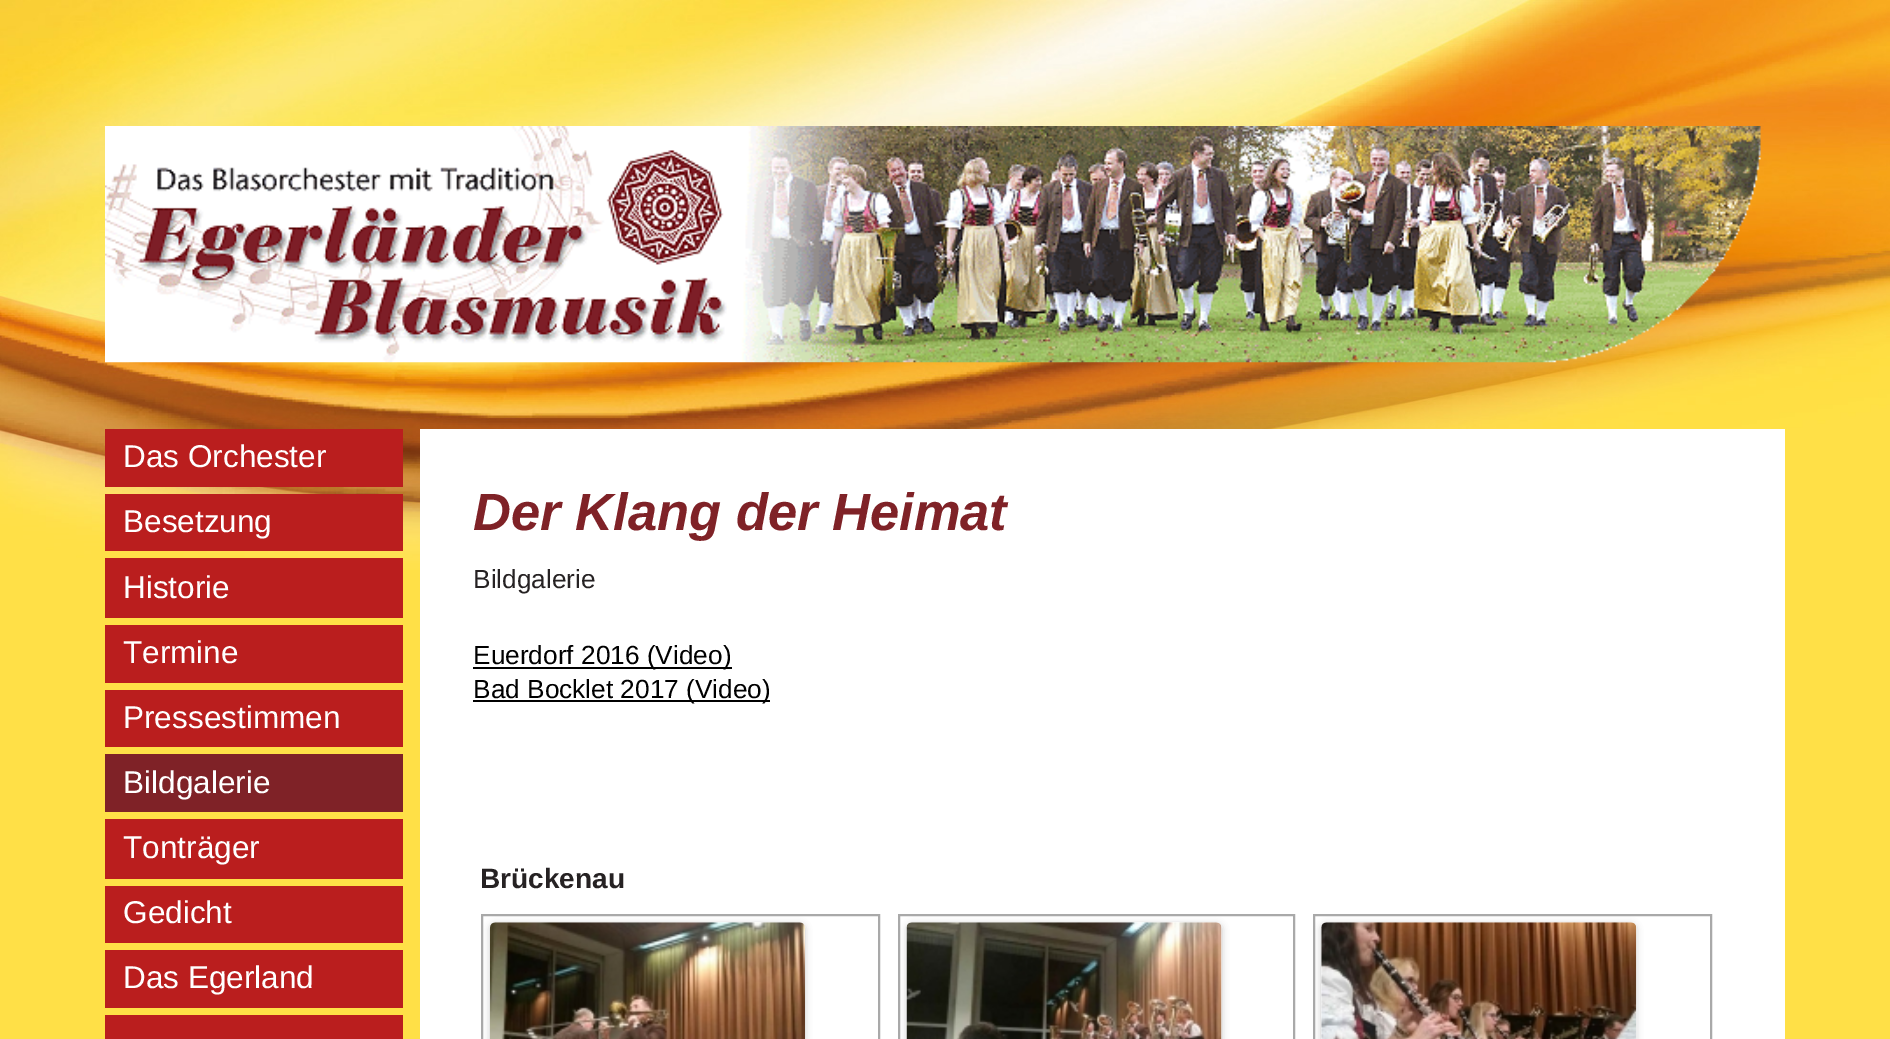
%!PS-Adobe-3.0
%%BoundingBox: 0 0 1890 1039
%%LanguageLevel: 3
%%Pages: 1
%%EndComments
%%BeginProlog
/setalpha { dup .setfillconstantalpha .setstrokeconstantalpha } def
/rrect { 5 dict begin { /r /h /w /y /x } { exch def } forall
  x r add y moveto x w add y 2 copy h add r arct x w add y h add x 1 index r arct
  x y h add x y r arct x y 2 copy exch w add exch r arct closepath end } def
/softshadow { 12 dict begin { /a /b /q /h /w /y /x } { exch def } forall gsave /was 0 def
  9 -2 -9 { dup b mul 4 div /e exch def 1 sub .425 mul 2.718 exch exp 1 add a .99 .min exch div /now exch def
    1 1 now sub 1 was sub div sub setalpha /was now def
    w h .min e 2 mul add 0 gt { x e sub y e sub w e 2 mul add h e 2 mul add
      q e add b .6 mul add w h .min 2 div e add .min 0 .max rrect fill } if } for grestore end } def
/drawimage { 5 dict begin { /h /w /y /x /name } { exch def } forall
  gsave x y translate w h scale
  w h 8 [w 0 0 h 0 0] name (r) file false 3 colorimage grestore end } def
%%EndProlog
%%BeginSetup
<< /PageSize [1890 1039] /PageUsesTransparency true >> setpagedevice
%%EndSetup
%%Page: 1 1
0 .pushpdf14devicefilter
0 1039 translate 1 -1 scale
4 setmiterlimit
1 0.878 0.278 setrgbcolor
0 0 1890 1039 rectfill
(images/1.raw) 0 0 1890 570 drawimage
(images/2.raw) 105 126 1656 237 drawimage
0.729 0.118 0.118 setrgbcolor
105 429 298 58 rectfill
105 494 298 57 rectfill
105 558 298 60 rectfill
105 625 298 58 rectfill
105 690 298 57 rectfill
0.498 0.133 0.153 setrgbcolor
105 754 298 58 rectfill
0.729 0.118 0.118 setrgbcolor
105 819 298 60 rectfill
105 886 298 57 rectfill
105 950 298 58 rectfill
105 1015 298 24 rectfill
1 setgray
420 429 1365 610 rectfill
0 setgray
473 667 259 2 rectfill
473 700 297 2 rectfill
0.663 setgray
2 setlinewidth
482 915 397 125 rectstroke
0 setgray
490 924 315 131 5 3.5 0.2 softshadow
(images/3.raw) 490 922 315 117 drawimage
0.663 setgray
899 915 395 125 rectstroke
0 setgray
907 924 315 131 5 3.5 0.2 softshadow
(images/4.raw) 906 922 316 117 drawimage
0.663 setgray
1314 915 397 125 rectstroke
0 setgray
1321 924 315 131 5 3.5 0.2 softshadow
(images/5.raw) 1321 922 316 117 drawimage
/LiberationSans-Regular [31.5 0 0 -31.5 0 0] selectfont
1 setgray
123 467 moveto (Das Orchester) show
123 532 moveto (Besetzung) show
123 598 moveto (Historie) show
123 663 moveto (Termine) show
123 728 moveto (Pressestimmen) show
123 793 moveto (Bildgalerie) show
123 858 moveto (Tonträger) show
123 923 moveto (Gedicht) show
123 988 moveto (Das Egerland) show
/LiberationSans-BoldItalic [52.5 0 0 -52.5 0 0] selectfont
0.498 0.133 0.153 setrgbcolor
473 530 moveto (Der Klang der Heimat) show
/LiberationSans-Regular [26.25 0 0 -26.25 0 0] selectfont
0.149 0.133 0.137 setrgbcolor
473 588 moveto (Bildgalerie) show
0 setgray
473 664 moveto (Euerdorf 2016 \(Video\)) show
473 698 moveto (Bad Bocklet 2017 \(Video\)) show
/LiberationSans-Bold [28 0 0 -28 0 0] selectfont
0.149 0.133 0.137 setrgbcolor
480 888 moveto (Brückenau) show
.poppdf14devicefilter showpage
%%EOF
